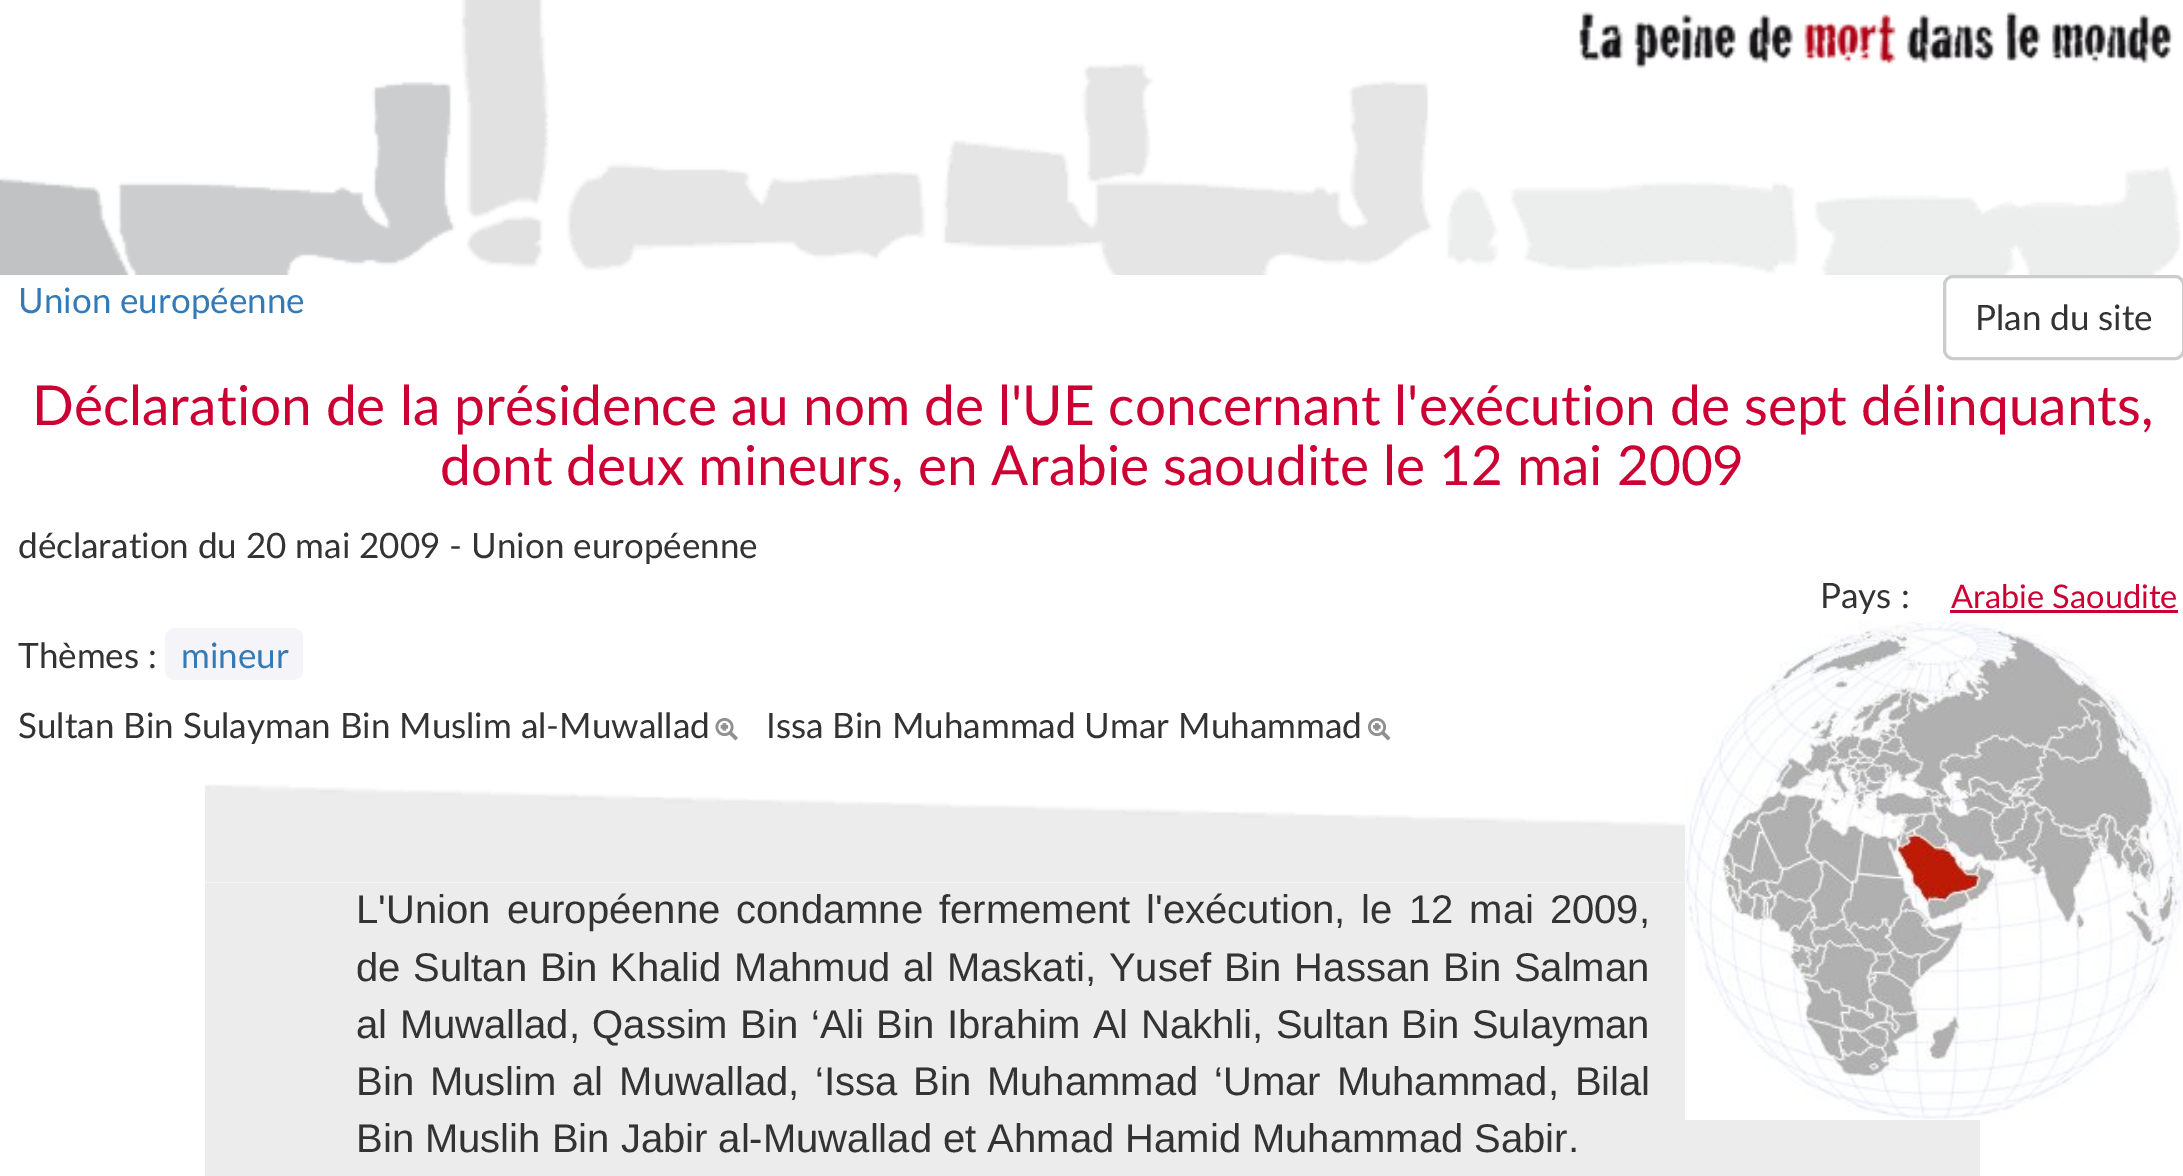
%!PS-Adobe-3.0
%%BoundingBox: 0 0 2183 1176
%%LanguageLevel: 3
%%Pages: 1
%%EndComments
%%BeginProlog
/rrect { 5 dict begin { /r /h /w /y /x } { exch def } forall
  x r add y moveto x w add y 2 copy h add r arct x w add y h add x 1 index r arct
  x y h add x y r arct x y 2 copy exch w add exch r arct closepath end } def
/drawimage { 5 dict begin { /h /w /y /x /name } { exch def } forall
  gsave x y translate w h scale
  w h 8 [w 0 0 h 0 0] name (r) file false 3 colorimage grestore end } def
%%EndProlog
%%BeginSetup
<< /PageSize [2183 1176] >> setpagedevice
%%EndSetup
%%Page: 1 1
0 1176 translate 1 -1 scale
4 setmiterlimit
1 setgray
0 0 2183 1176 rectfill
(images/1.raw) 0 0 2181 275 drawimage
(images/2.raw) 1579 11 594 58 drawimage
0.8 setgray
3 setlinewidth
1944.5 276.5 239 82 8.5 rrect stroke
0.8 0 0.2 setrgbcolor
1950 610 228 3 rectfill
0.957 0.957 0.976 setrgbcolor
165 628 138 52 10 rrect fill
(images/3.raw) 715 717 23 24 drawimage
(images/4.raw) 1368 718 23 23 drawimage
0.925 0.925 0.929 setrgbcolor
205 883 1775 293 rectfill
(images/5.raw) 1685 620 498 500 drawimage
(images/6.raw) 205 784 1480 99 drawimage
/Lato-Regular [35 0 0 -35 0 0] selectfont
0.2 0.478 0.718 setrgbcolor
18 313 moveto (Union européenne) show
0.2 setgray
1975 330 moveto (Plan du site) show
/Lato-Regular [55 0 0 -55 0 0] selectfont
0.8 0 0.2 setrgbcolor
32 425 moveto (Déclaration de la présidence au nom de l'UE concernant l'exécution de sept délinquants,) show
440 485 moveto (dont deux mineurs, en Arabie saoudite le 12 mai 2009) show
/Lato-Regular [35 0 0 -35 0 0] selectfont
0.2 setgray
18 558 moveto (déclaration du 20 mai 2009 - Union européenne) show
1820 608 moveto (Pays :) show
/Lato-Regular [32.5 0 0 -32.5 0 0] selectfont
0.8 0 0.2 setrgbcolor
1951 608 moveto (Arabie Saoudite) show
/Lato-Regular [35 0 0 -35 0 0] selectfont
0.2 setgray
18 668 moveto (Thèmes :) show
0.2 0.478 0.718 setrgbcolor
181 668 moveto (mineur) show
0.2 setgray
18 738 moveto (Sultan Bin Sulayman Bin Muslim al-Muwallad) show
766 738 moveto (Issa Bin Muhammad Umar Muhammad) show
/LiberationSans-Regular [40 0 0 -40 0 0] selectfont
356 923 moveto 5 0 32 (L'Union européenne condamne fermement l'exécution, le 12 mai 2009,) widthshow
356 981 moveto 1.75 0 32 (de Sultan Bin Khalid Mahmud al Maskati, Yusef Bin Hassan Bin Salman) widthshow
356 1038 moveto 1.4 0 32 (al Muwallad, Qassim Bin ‘Ali Bin Ibrahim Al Nakhli, Sultan Bin Sulayman) widthshow
356 1095 moveto 4.75 0 32 (Bin Muslim al Muwallad, ‘Issa Bin Muhammad ‘Umar Muhammad, Bilal) widthshow
356 1152 moveto (Bin Muslih Bin Jabir al-Muwallad et Ahmad Hamid Muhammad Sabir.) show
showpage
%%EOF
